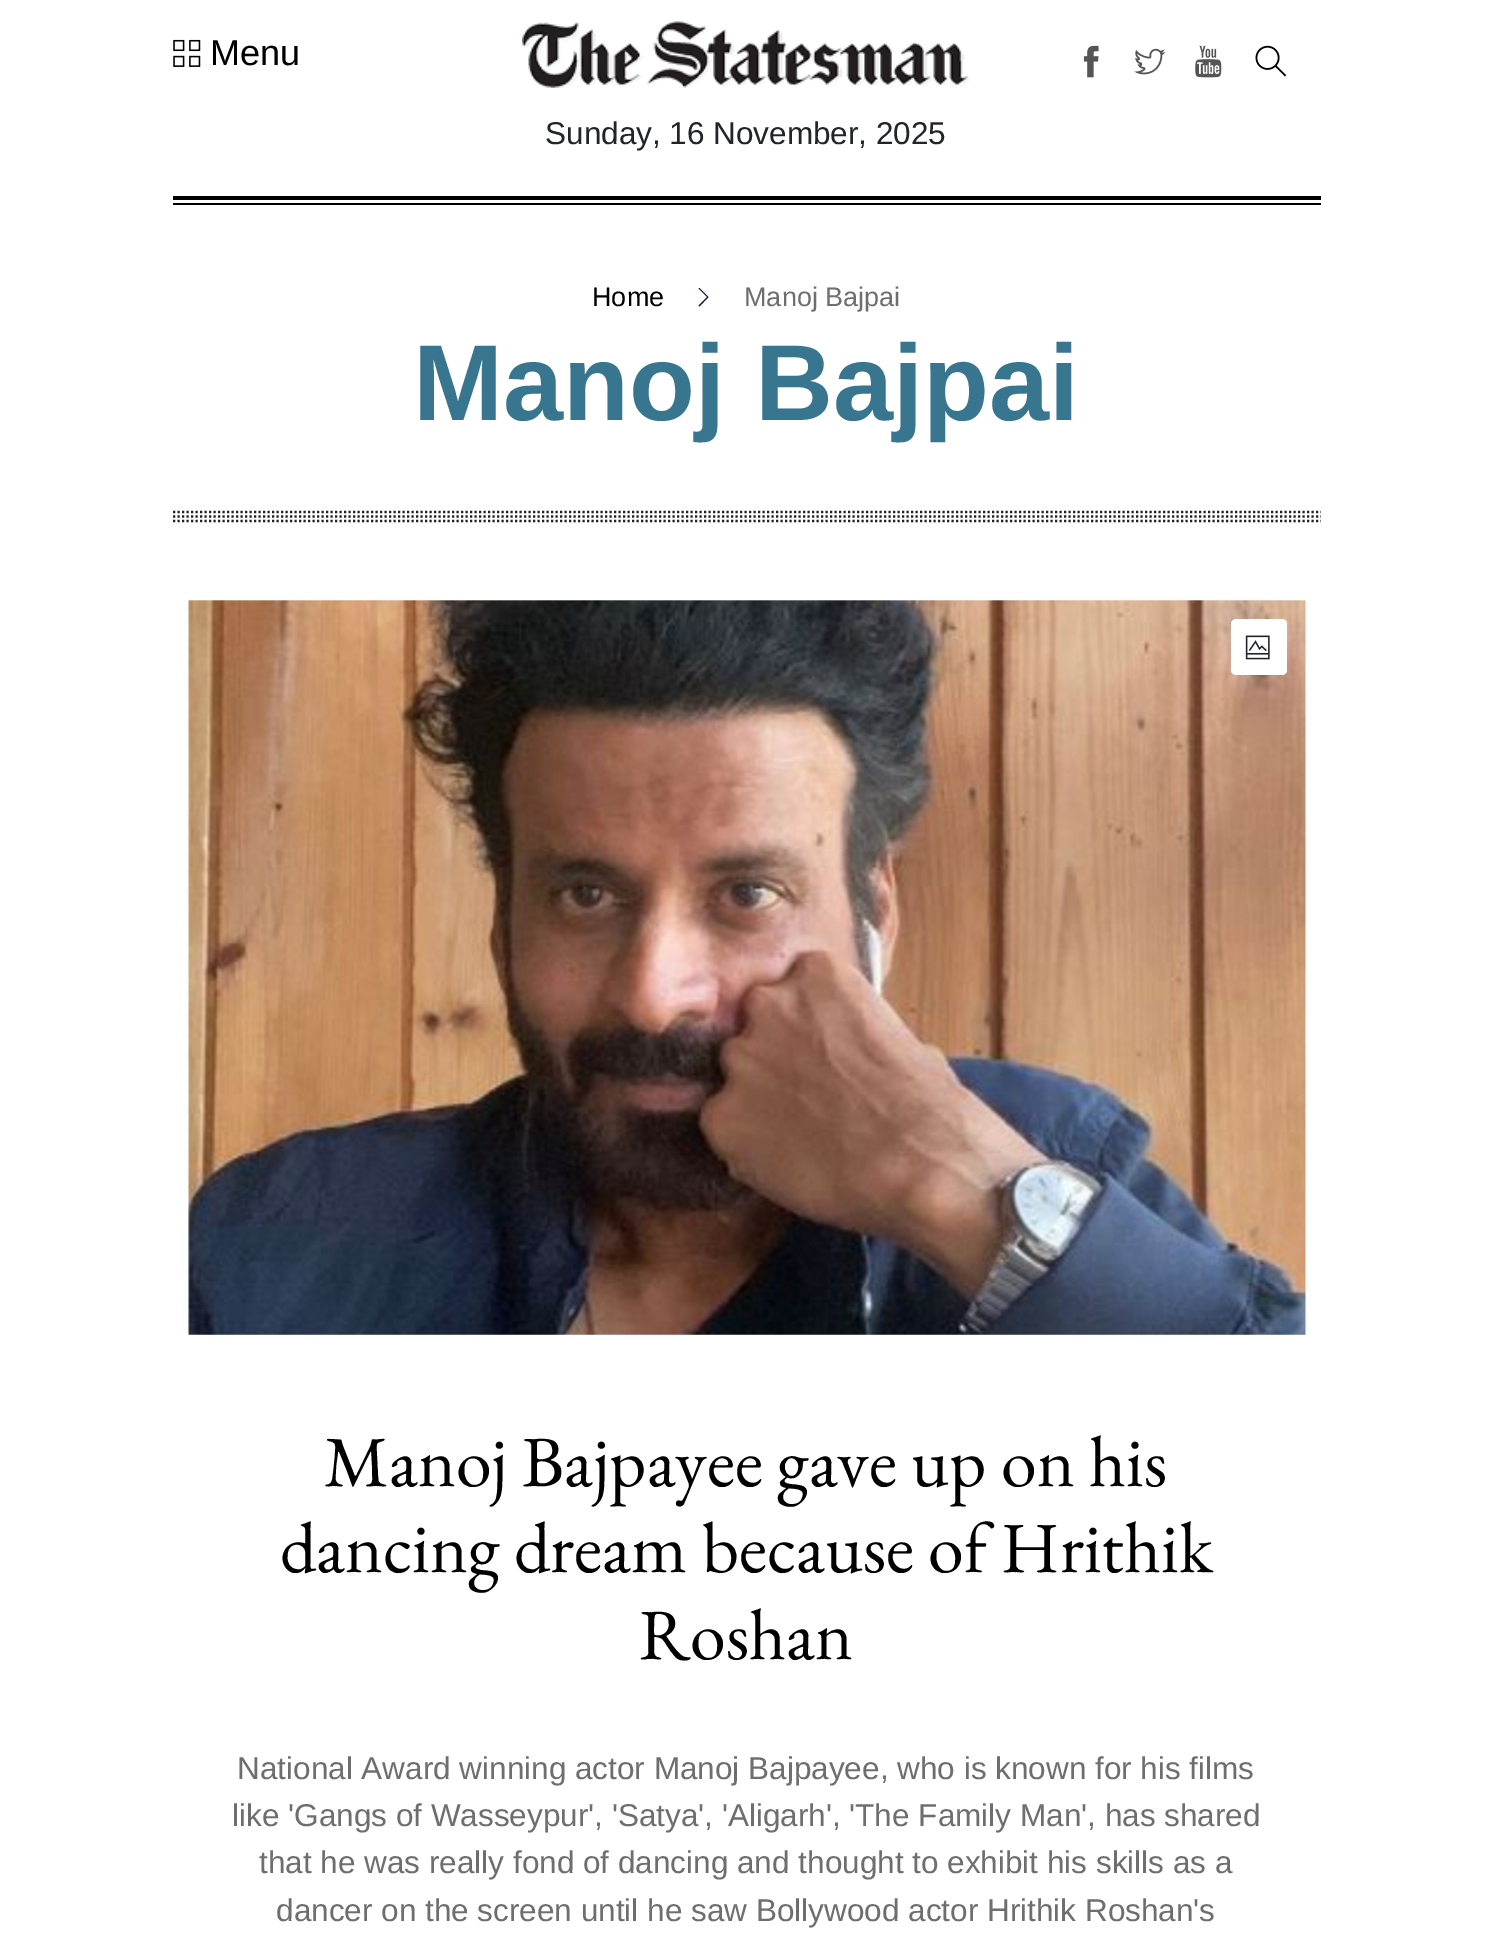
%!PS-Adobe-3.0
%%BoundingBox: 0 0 1491 1934
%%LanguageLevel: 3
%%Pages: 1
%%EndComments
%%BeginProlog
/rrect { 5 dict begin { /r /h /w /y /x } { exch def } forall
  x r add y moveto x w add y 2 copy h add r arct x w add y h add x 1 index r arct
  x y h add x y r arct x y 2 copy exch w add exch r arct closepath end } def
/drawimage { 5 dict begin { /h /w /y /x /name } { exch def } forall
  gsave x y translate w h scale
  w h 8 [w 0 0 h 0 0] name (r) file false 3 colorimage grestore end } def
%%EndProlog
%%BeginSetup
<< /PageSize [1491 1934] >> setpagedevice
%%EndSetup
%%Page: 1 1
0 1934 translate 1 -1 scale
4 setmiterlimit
1 setgray
0 0 1491 1934 rectfill
(images/1.raw) 173 39 28 28 drawimage
(images/2.raw) 1083 45 16 33 drawimage
(images/3.raw) 1134 48 32 27 drawimage
(images/4.raw) 1195 45 27 33 drawimage
(images/5.raw) 1255 45 32 32 drawimage
(images/6.raw) 522 21 448 67 drawimage
0 setgray
173 196 1148 4 rectfill
173 203 1148 2 rectfill
0.063 0.114 0.208 setrgbcolor
newpath 708.5 297 moveto 699.5 306.5 lineto 698.5 305.5 lineto 707 297 lineto 698.5 288.5 lineto 699.5 288 lineto closepath fill
0.133 setgray
2.2 setlinewidth
[2.25 2.25] 0 setdash
newpath 173 516.5 moveto 1321 516.5 lineto stroke
newpath 173 512 moveto 1321 512 lineto stroke
newpath 173 521 moveto 1321 521 lineto stroke
(images/7.raw) 187 599 1120 737 drawimage
1 setgray
1231 619 56 56 5 rrect fill
(images/8.raw) 1245 635 25 25 drawimage
/LiberationSans-Regular [36 0 0 -36 0 0] selectfont
0 setgray
210 65 moveto (Menu) show
/LiberationSans-Regular [31.5 0 0 -31.5 0 0] selectfont
0.129 0.145 0.161 setrgbcolor
545 144 moveto (Sunday, 16 November, 2025) show
/LiberationSans-Regular [27 0 0 -27 0 0] selectfont
0 setgray
592 306 moveto (Home) show
0.431 setgray
744 306 moveto (Manoj Bajpai) show
/LiberationSans-Bold [108 0 0 -108 0 0] selectfont
0.216 0.463 0.557 setrgbcolor
413 420 moveto (Manoj Bajpai) show
/EBGaramond-Regular [72 0 0 -72 0 0] selectfont
0 setgray
324 1486 moveto (Manoj Bajpayee gave up on his) show
280 1572 moveto (dancing dream because of Hrithik) show
639 1659 moveto (Roshan) show
/LiberationSans-Regular [31.5 0 0 -31.5 0 0] selectfont
0.431 setgray
237 1779 moveto (National Award winning actor Manoj Bajpayee, who is known for his films) show
232 1826 moveto (like 'Gangs of Wasseypur', 'Satya', 'Aligarh', 'The Family Man', has shared) show
259 1873 moveto (that he was really fond of dancing and thought to exhibit his skills as a) show
276 1921 moveto (dancer on the screen until he saw Bollywood actor Hrithik Roshan's) show
showpage
%%EOF
